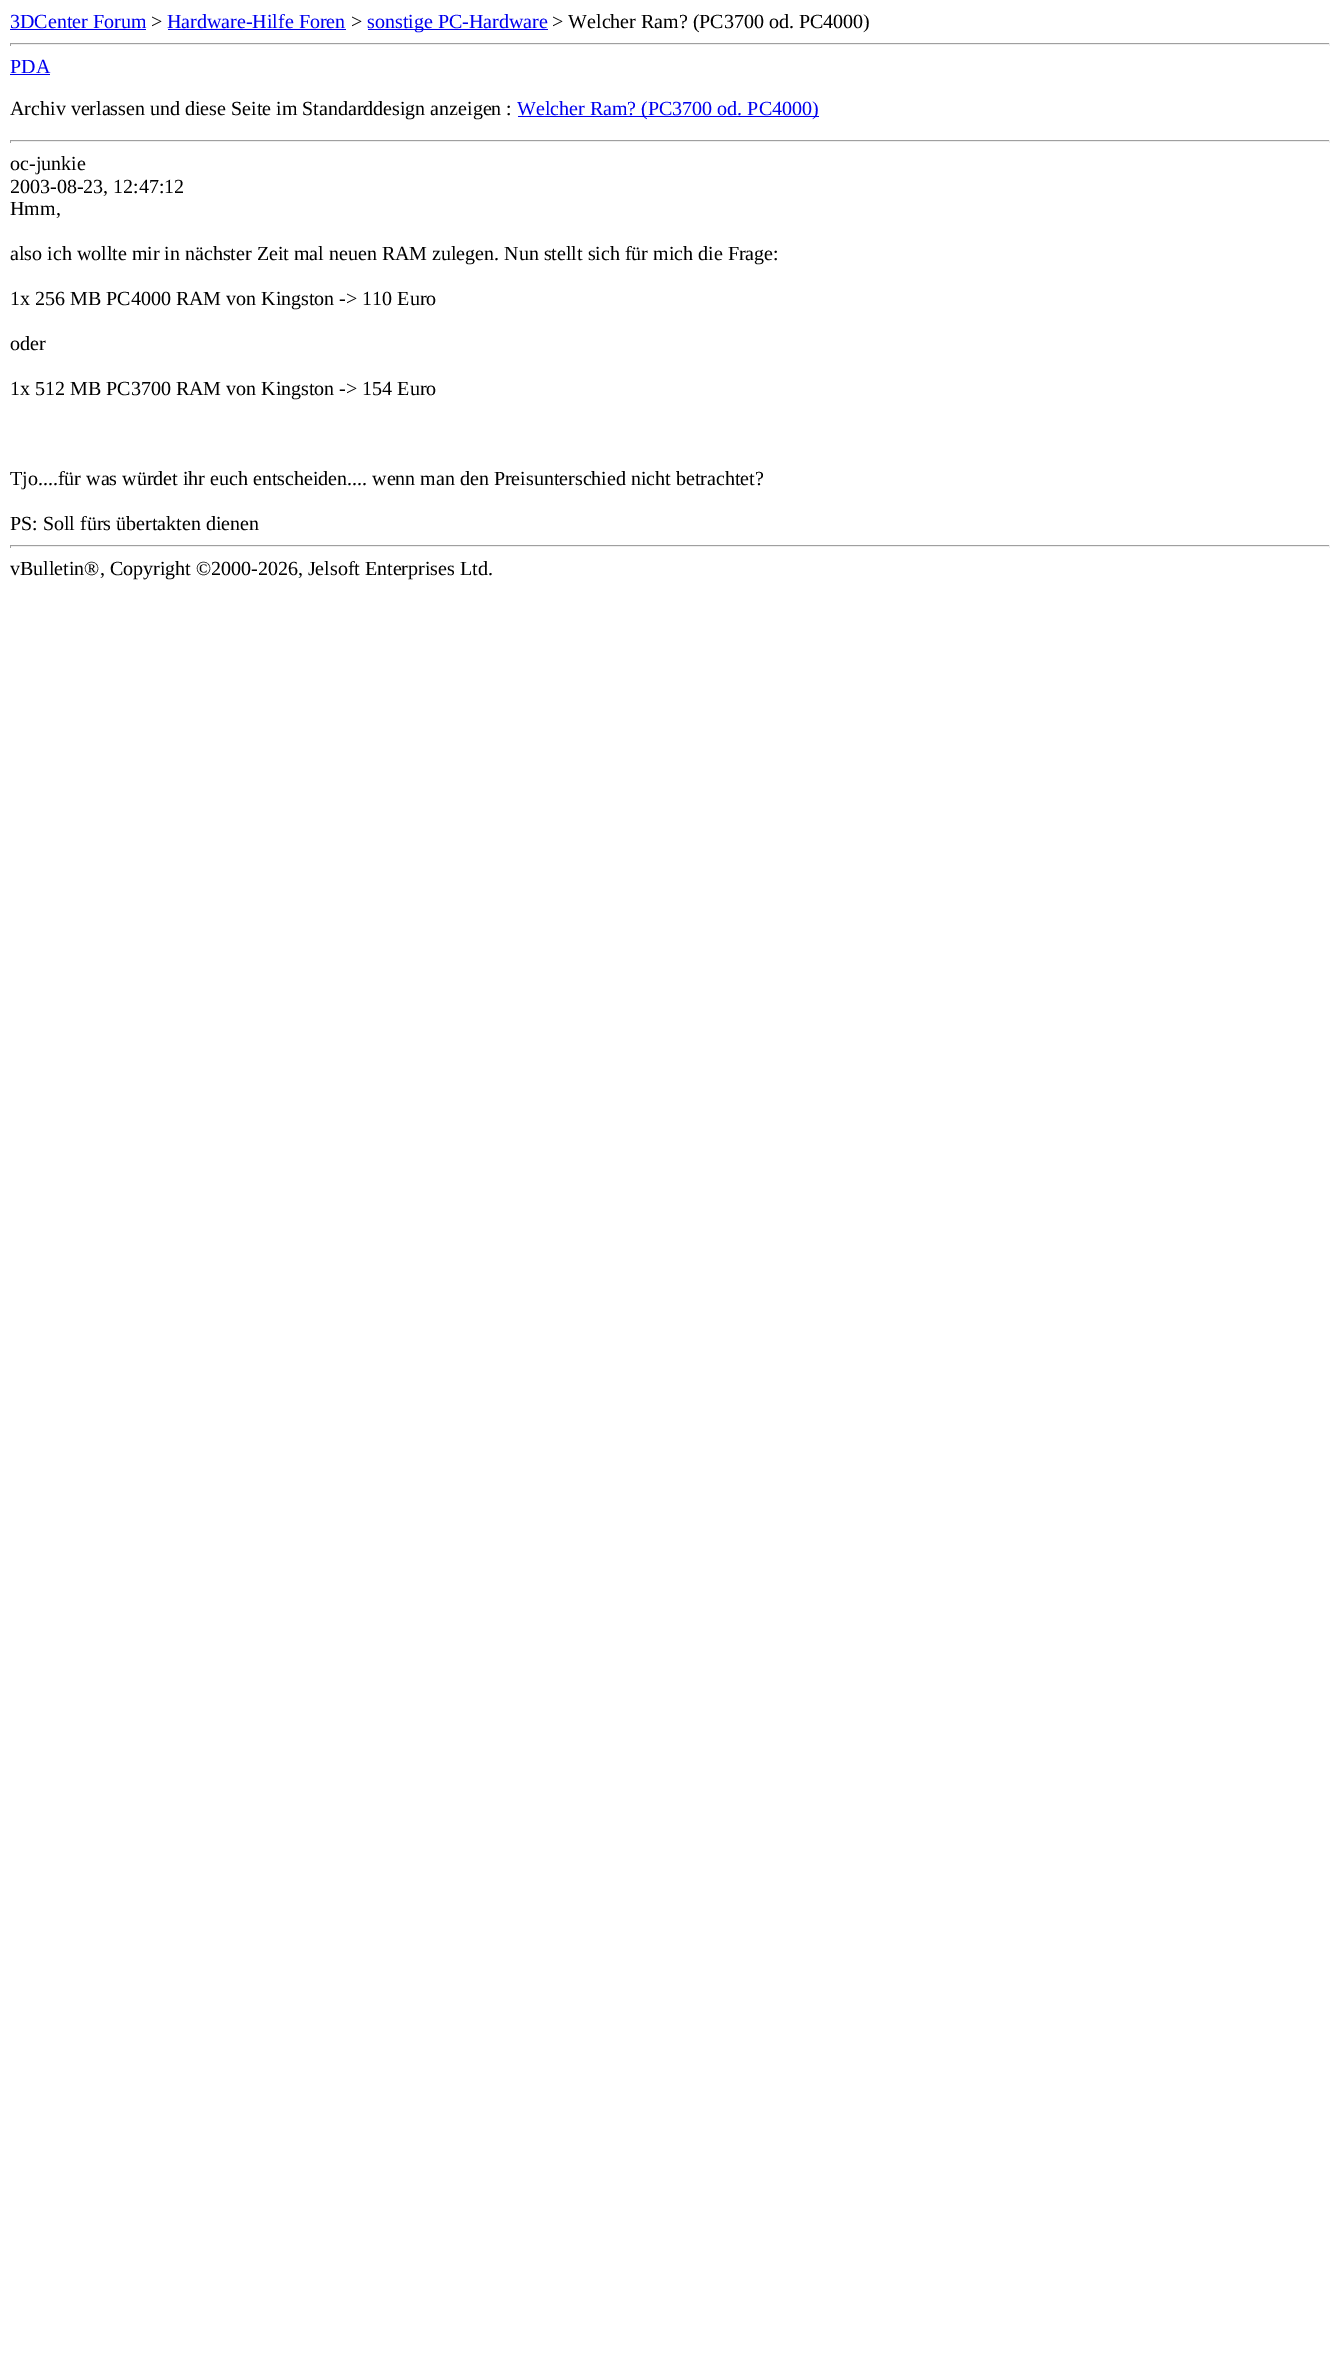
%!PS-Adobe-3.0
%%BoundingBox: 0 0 1339 2367
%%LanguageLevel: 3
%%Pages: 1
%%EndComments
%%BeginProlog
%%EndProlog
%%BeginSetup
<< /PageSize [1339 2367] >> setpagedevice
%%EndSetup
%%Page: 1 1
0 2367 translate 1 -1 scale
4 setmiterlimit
1 setgray
0 0 1339 2367 rectfill
0 0 0.933 setrgbcolor
10 29 136 1 rectfill
168 29 178 1 rectfill
368 29 180 1 rectfill
0.624 setgray
10 43 1320 1 rectfill
0.933 setgray
1329 43 1 3 rectfill
10 44 1320 1 rectfill
0.624 setgray
10 43 1 3 rectfill
0 0 0.933 setrgbcolor
10 74 40 1 rectfill
518 116 301 1 rectfill
0.624 setgray
10 140 1320 1 rectfill
0.933 setgray
1329 140 1 3 rectfill
10 141 1320 1 rectfill
0.624 setgray
10 140 1 3 rectfill
10 545 1320 1 rectfill
0.933 setgray
1329 545 1 3 rectfill
10 546 1320 1 rectfill
0.624 setgray
10 545 1 3 rectfill
/LiberationSerif-Regular [20 0 0 -20 0 0] selectfont
0 0 0.933 setrgbcolor
10 28 moveto (3DCenter Forum) show
0 setgray
151 28 moveto (>) show
0 0 0.933 setrgbcolor
167 28 moveto (Hardware-Hilfe Foren) show
0 setgray
351 28 moveto (>) show
0 0 0.933 setrgbcolor
367 28 moveto (sonstige PC-Hardware) show
0 setgray
552 28 moveto (> Welcher Ram? \(PC3700 od. PC4000\)) show
0 0 0.933 setrgbcolor
10 73 moveto (PDA) show
0 setgray
10 115 moveto (Archiv verlassen und diese Seite im Standarddesign anzeigen :) show
0 0 0.933 setrgbcolor
517 115 moveto (Welcher Ram? \(PC3700 od. PC4000\)) show
0 setgray
10 170 moveto (oc-junkie) show
10 193 moveto (2003-08-23, 12:47:12) show
10 215 moveto (Hmm,) show
10 260 moveto (also ich wollte mir in nächster Zeit mal neuen RAM zulegen. Nun stellt sich für mich die Frage:) show
10 305 moveto (1x 256 MB PC4000 RAM von Kingston -> 110 Euro) show
10 350 moveto (oder) show
10 395 moveto (1x 512 MB PC3700 RAM von Kingston -> 154 Euro) show
10 485 moveto (Tjo....für was würdet ihr euch entscheiden.... wenn man den Preisunterschied nicht betrachtet?) show
10 530 moveto (PS: Soll fürs übertakten dienen) show
10 575 moveto (vBulletin®, Copyright ©2000-2026, Jelsoft Enterprises Ltd.) show
showpage
%%EOF
